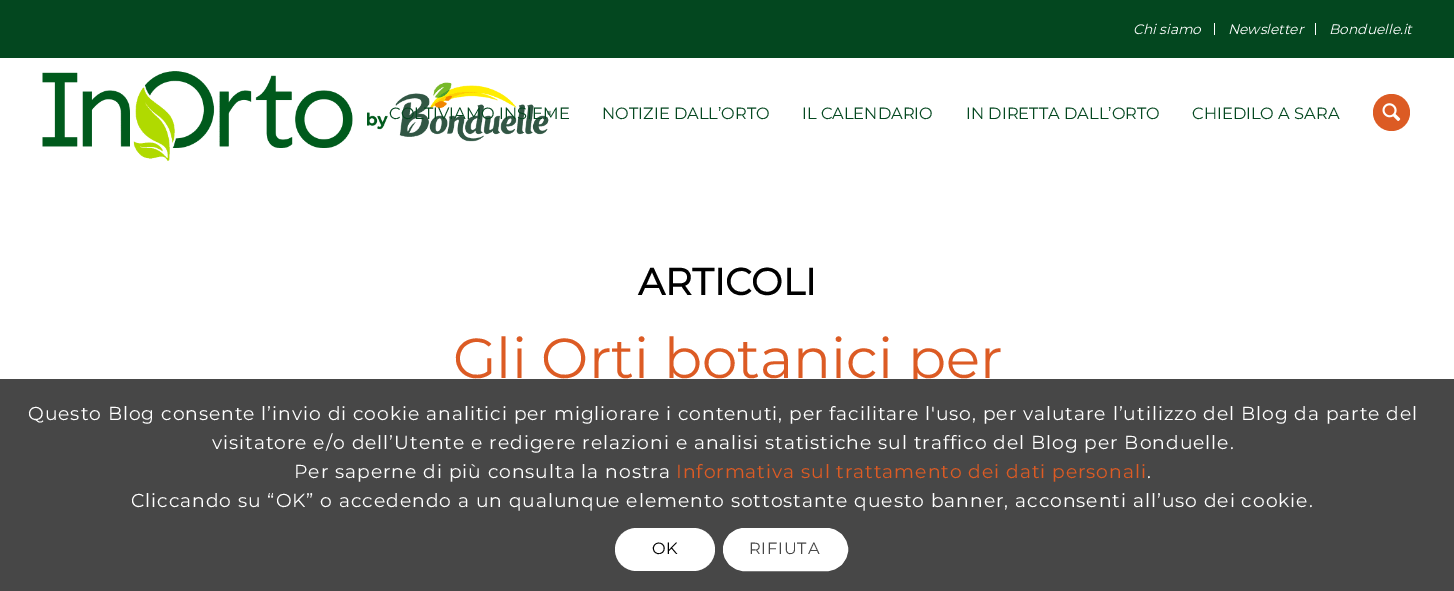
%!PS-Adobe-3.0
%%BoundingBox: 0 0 1454 591
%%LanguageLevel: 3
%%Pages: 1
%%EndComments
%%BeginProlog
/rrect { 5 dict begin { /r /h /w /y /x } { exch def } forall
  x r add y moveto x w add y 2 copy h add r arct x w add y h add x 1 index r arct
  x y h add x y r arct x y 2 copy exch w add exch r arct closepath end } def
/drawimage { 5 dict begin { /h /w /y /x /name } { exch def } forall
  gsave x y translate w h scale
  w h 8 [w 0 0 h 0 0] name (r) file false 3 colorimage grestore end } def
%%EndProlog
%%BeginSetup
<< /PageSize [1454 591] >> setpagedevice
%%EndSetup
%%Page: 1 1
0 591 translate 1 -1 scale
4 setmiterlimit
1 setgray
0 0 1454 591 rectfill
0.012 0.278 0.122 setrgbcolor
0 0 1454 58 rectfill
1 setgray
1214 23 1 12 rectfill
1315 23 1 12 rectfill
(images/1.raw) 42 71 510 90 drawimage
0.863 0.357 0.141 setrgbcolor
newpath 1391.5 112.5 18.5 0 360 arc closepath fill
(images/2.raw) 1382 103 19 18 drawimage
/Montserrat-ThinItalic [13.75 0 0 -13.75 0 0] selectfont
1 setgray
1133 34 moveto (Chi siamo) show
1228 34 moveto (Newsletter) show
1329 34 moveto (Bonduelle.it) show
/Montserrat-Thin [16.25 0 0 -16.25 0 0] selectfont
0.012 0.278 0.122 setrgbcolor
389 119 moveto (COLTIVIAMO INSIEME) show
602 119 moveto (NOTIZIE DALL’ORTO) show
802 119 moveto (IL CALENDARIO) show
966 119 moveto (IN DIRETTA DALL’ORTO) show
1192 119 moveto (CHIEDILO A SARA) show
/Montserrat-Bold [37.5 0 0 -37.5 0 0] selectfont
0 setgray
638 295 moveto (ARTICOLI) show
/Montserrat-Thin [56.25 0 0 -56.25 0 0] selectfont
0.863 0.357 0.141 setrgbcolor
453 378 moveto (Gli Orti botanici per) show
0.278 setgray
0 379 1454 212 rectfill
/Montserrat-Thin [18.75 0 0 -18.75 0 0] selectfont
1 setgray
28 420 moveto 0.94 0 (Questo Blog consente l’invio di cookie analitici per migliorare i contenuti, per facilitare l'uso, per valutare l’utilizzo del Blog da parte del) ashow
212 449 moveto 0.94 0 (visitatore e/o dell’Utente e redigere relazioni e analisi statistiche sul traffico del Blog per Bonduelle.) ashow
294 478 moveto 0.94 0 (Per saperne di più consulta la nostra) ashow
0.863 0.357 0.141 setrgbcolor
676 478 moveto 0.94 0 (Informativa sul trattamento dei dati personali) ashow
1 setgray
1147 478 moveto 0.94 0 (.) ashow
131 507 moveto 0.94 0 (Cliccando su “OK” o accedendo a un qualunque elemento sottostante questo banner, acconsenti all’uso dei cookie.) ashow
615 528 100 43 21.5 rrect fill
/Montserrat-Thin [16.25 0 0 -16.25 0 0] selectfont
0 setgray
652 554 moveto 0.75 0 (OK) ashow
1 setgray
723.5 528.5 124 42 21 rrect gsave fill grestore
stroke
0.278 setgray
749 554 moveto 0.75 0 (RIFIUTA) ashow
showpage
%%EOF
